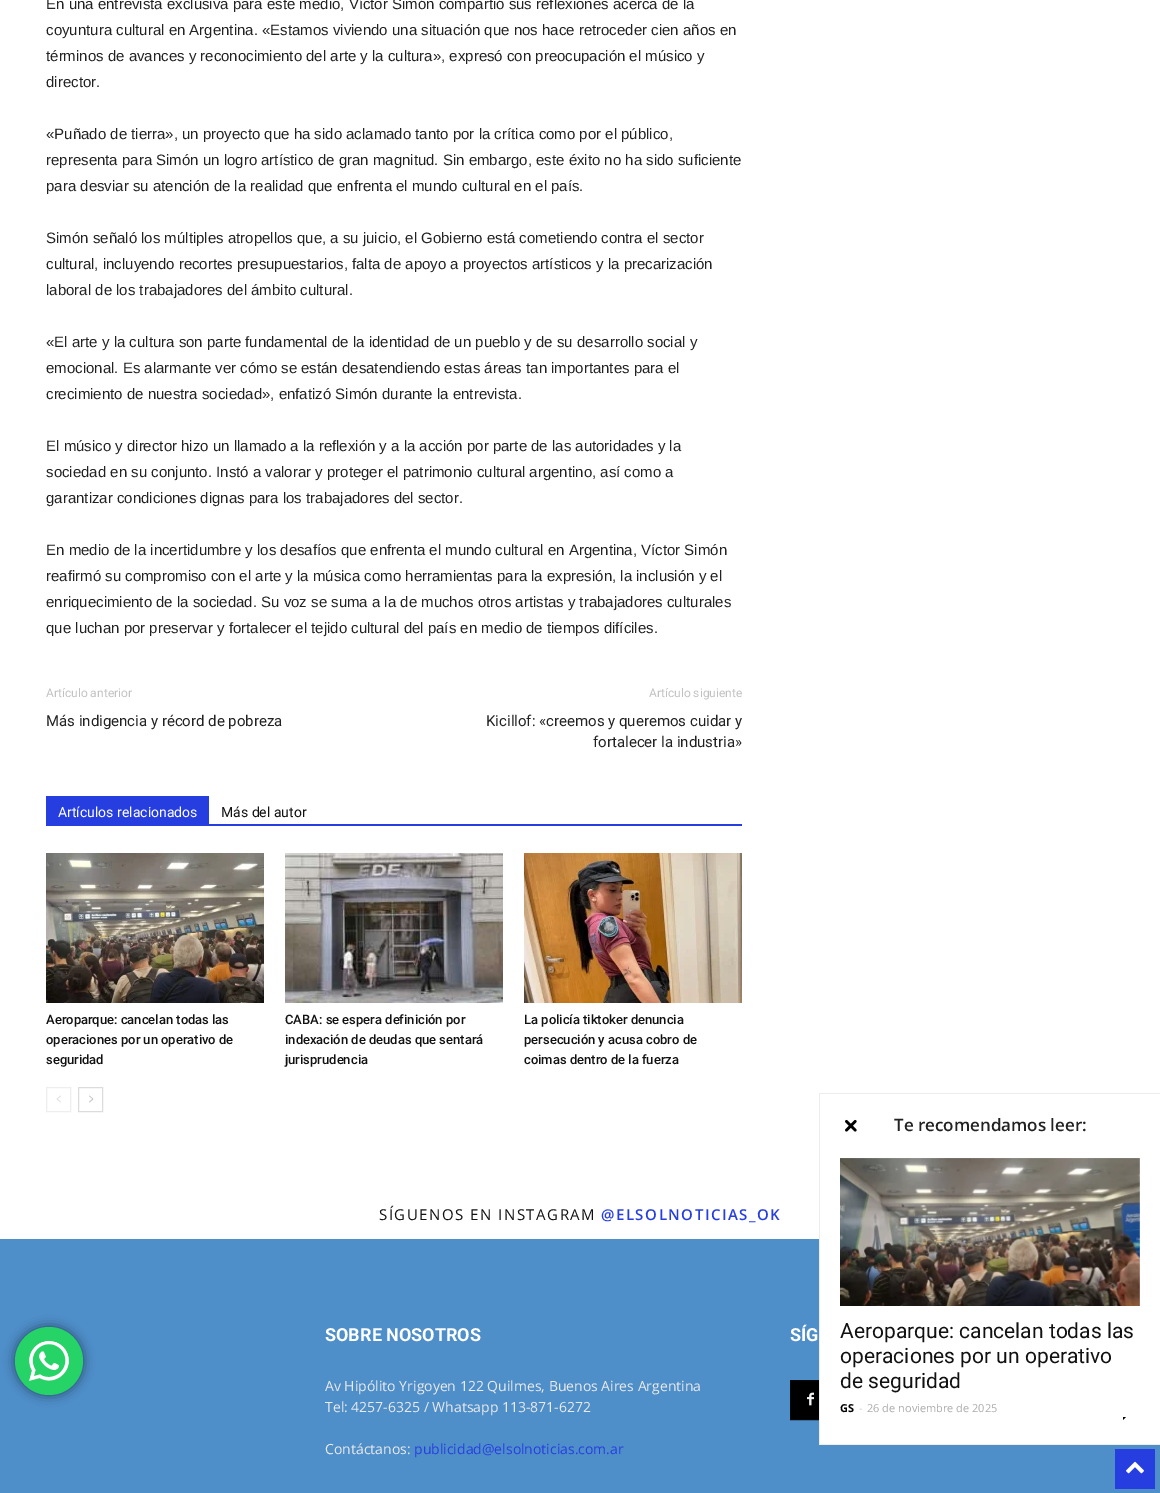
%!PS-Adobe-3.0
%%BoundingBox: 0 0 1160 1493
%%LanguageLevel: 3
%%Pages: 1
%%EndComments
%%BeginProlog
/setalpha { dup .setfillconstantalpha .setstrokeconstantalpha } def
/rrect { 5 dict begin { /r /h /w /y /x } { exch def } forall
  x r add y moveto x w add y 2 copy h add r arct x w add y h add x 1 index r arct
  x y h add x y r arct x y 2 copy exch w add exch r arct closepath end } def
/softshadow { 12 dict begin { /a /b /q /h /w /y /x } { exch def } forall gsave /was 0 def
  9 -2 -9 { dup b mul 4 div /e exch def 1 sub .425 mul 2.718 exch exp 1 add a .99 .min exch div /now exch def
    1 1 now sub 1 was sub div sub setalpha /was now def
    w h .min e 2 mul add 0 gt { x e sub y e sub w e 2 mul add h e 2 mul add
      q e add b .6 mul add w h .min 2 div e add .min 0 .max rrect fill } if } for grestore end } def
/drawimage { 5 dict begin { /h /w /y /x /name } { exch def } forall
  gsave x y translate w h scale
  w h 8 [w 0 0 h 0 0] name (r) file false 3 colorimage grestore end } def
%%EndProlog
%%BeginSetup
<< /PageSize [1160 1493] /PageUsesTransparency true >> setpagedevice
%%EndSetup
%%Page: 1 1
0 .pushpdf14devicefilter
0 1493 translate 1 -1 scale
4 setmiterlimit
1 setgray
0 0 1160 1493 rectfill
0.149 0.243 0.878 setrgbcolor
46 824 696 2 rectfill
46 796 163 28 rectfill
(images/1.raw) 46 853 218 150 drawimage
(images/2.raw) 285 853 218 150 drawimage
(images/3.raw) 524 853 218 150 drawimage
0.933 setgray
46.5 1087.5 24 24 rectstroke
(images/4.raw) 56 1095 5 8 drawimage
0.863 setgray
78.5 1087.5 24 24 rectstroke
(images/5.raw) 89 1095 5 8 drawimage
0.306 0.557 0.788 setrgbcolor
0 1239 1160 254 rectfill
0 setgray
791 1381 28 38 rectfill
(images/6.raw) 807 1392 7 14 drawimage
0.031 setgray
790.5 1380.5 39 39 rectstroke
1 setgray
820 1239 340 205 rectfill
0.929 setgray
819 1093 341 1 rectfill
819 1444 341 1 rectfill
819 1093 1 352 rectfill
(images/7.raw) 845 1119 12 13 drawimage
(images/8.raw) 840 1158 300 148 drawimage
0 setgray
newpath 1123 1417 moveto 1126 1417 lineto 1123 1420 lineto closepath fill
15 1327 68 68 34 5.5 0.5 softshadow
0.145 0.827 0.4 setrgbcolor
newpath 49 1361 34 0 360 arc closepath fill
(images/9.raw) 29 1341 40 40 drawimage
0.149 0.243 0.878 setrgbcolor
1115 1449 40 40 rectfill
(images/10.raw) 1126 1461 18 13 drawimage
/LiberationSans-Regular [15 0 0 -15 0 0] selectfont
0.133 setgray
46 9 moveto (En una entrevista exclusiva para este medio, Víctor Simón compartió sus reflexiones acerca de la) show
46 35 moveto (coyuntura cultural en Argentina. «Estamos viviendo una situación que nos hace retroceder cien años en) show
46 61 moveto (términos de avances y reconocimiento del arte y la cultura», expresó con preocupación el músico y) show
46 87 moveto (director.) show
46 139 moveto («Puñado de tierra», un proyecto que ha sido aclamado tanto por la crítica como por el público,) show
46 165 moveto (representa para Simón un logro artístico de gran magnitud. Sin embargo, este éxito no ha sido suficiente) show
46 191 moveto (para desviar su atención de la realidad que enfrenta el mundo cultural en el país.) show
46 243 moveto (Simón señaló los múltiples atropellos que, a su juicio, el Gobierno está cometiendo contra el sector) show
46 269 moveto (cultural, incluyendo recortes presupuestarios, falta de apoyo a proyectos artísticos y la precarización) show
46 295 moveto (laboral de los trabajadores del ámbito cultural.) show
46 347 moveto («El arte y la cultura son parte fundamental de la identidad de un pueblo y de su desarrollo social y) show
46 373 moveto (emocional. Es alarmante ver cómo se están desatendiendo estas áreas tan importantes para el) show
46 399 moveto (crecimiento de nuestra sociedad», enfatizó Simón durante la entrevista.) show
46 451 moveto (El músico y director hizo un llamado a la reflexión y a la acción por parte de las autoridades y la) show
46 477 moveto (sociedad en su conjunto. Instó a valorar y proteger el patrimonio cultural argentino, así como a) show
46 503 moveto (garantizar condiciones dignas para los trabajadores del sector.) show
46 555 moveto (En medio de la incertidumbre y los desafíos que enfrenta el mundo cultural en Argentina, Víctor Simón) show
46 581 moveto (reafirmó su compromiso con el arte y la música como herramientas para la expresión, la inclusión y el) show
46 607 moveto (enriquecimiento de la sociedad. Su voz se suma a la de muchos otros artistas y trabajadores culturales) show
46 633 moveto (que luchan por preservar y fortalecer el tejido cultural del país en medio de tiempos difíciles.) show
/Roboto-Regular [12 0 0 -12 0 0] selectfont
0.757 setgray
46 697 moveto (Artículo anterior) show
/Roboto-Regular [15 0 0 -15 0 0] selectfont
0.133 setgray
46 726 moveto (Más indigencia y récord de pobreza) show
/Roboto-Regular [12 0 0 -12 0 0] selectfont
0.757 setgray
649 697 moveto (Artículo siguiente) show
/Roboto-Regular [15 0 0 -15 0 0] selectfont
0.133 setgray
486 726 moveto (Kicillof: «creemos y queremos cuidar y) show
593 747 moveto (fortalecer la industria») show
/Roboto-Regular [14 0 0 -14 0 0] selectfont
1 setgray
58 817 moveto (Artículos relacionados) show
0.067 setgray
221 817 moveto (Más del autor) show
/Roboto-Medium [13 0 0 -13 0 0] selectfont
46 1024 moveto (Aeroparque: cancelan todas las) show
46 1044 moveto (operaciones por un operativo de) show
46 1064 moveto (seguridad) show
285 1024 moveto (CABA: se espera definición por) show
285 1044 moveto (indexación de deudas que sentará) show
285 1064 moveto (jurisprudencia) show
524 1024 moveto (La policía tiktoker denuncia) show
524 1044 moveto (persecución y acusa cobro de) show
524 1064 moveto (coimas dentro de la fuerza) show
/OpenSans-Regular [15 0 0 -15 0 0] selectfont
379 1220 moveto 1.5 0 (SÍGUENOS EN INSTAGRAM) ashow
/OpenSans-SemiBold [15 0 0 -15 0 0] selectfont
0.149 0.243 0.878 setrgbcolor
601 1220 moveto 1.5 0 (@ELSOLNOTICIAS_OK) ashow
/Roboto-Bold [18 0 0 -18 0 0] selectfont
1 setgray
325 1341 moveto (SOBRE NOSOTROS) show
/OpenSans-Regular [14 0 0 -14 0 0] selectfont
0.918 setgray
325 1391 moveto (Av Hipólito Yrigoyen 122 Quilmes, Buenos Aires Argentina) show
325 1412 moveto (Tel: 4257-6325 / Whatsapp 113-871-6272) show
325 1454 moveto (Contáctanos:) show
0.149 0.243 0.878 setrgbcolor
414 1454 moveto (publicidad@elsolnoticias.com.ar) show
/Roboto-Bold [18 0 0 -18 0 0] selectfont
1 setgray
790 1341 moveto (SÍG) show
/OpenSans-SemiBold [17 0 0 -17 0 0] selectfont
0.133 setgray
894 1131 moveto (Te recomendamos leer:) show
/Roboto-Regular [21 0 0 -21 0 0] selectfont
0.067 setgray
840 1338 moveto (Aeroparque: cancelan todas las) show
840 1363 moveto (operaciones por un operativo) show
840 1388 moveto (de seguridad) show
/OpenSans-Bold [11 0 0 -11 0 0] selectfont
0 setgray
840 1412 moveto (GS) show
/OpenSans-Regular [11 0 0 -11 0 0] selectfont
0.8 setgray
859 1412 moveto (-) show
0.667 setgray
867 1412 moveto (26 de noviembre de 2025) show
.poppdf14devicefilter showpage
%%EOF
